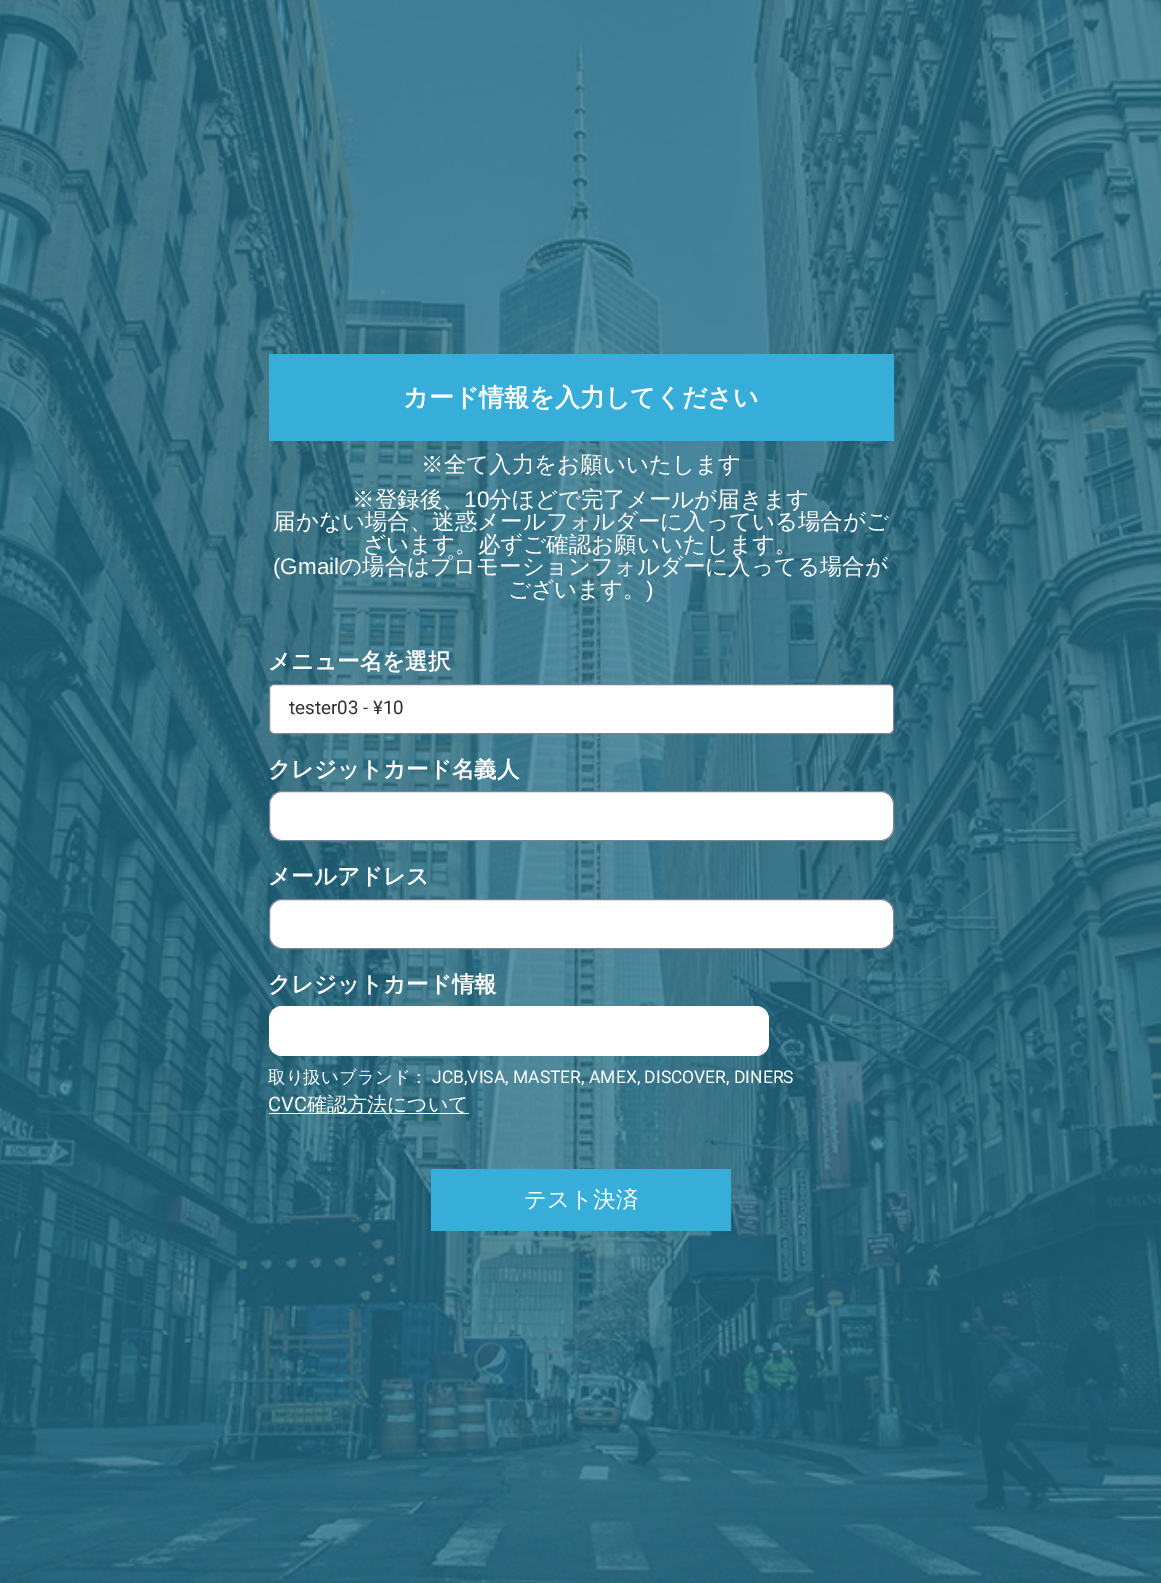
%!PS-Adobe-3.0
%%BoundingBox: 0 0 1161 1583
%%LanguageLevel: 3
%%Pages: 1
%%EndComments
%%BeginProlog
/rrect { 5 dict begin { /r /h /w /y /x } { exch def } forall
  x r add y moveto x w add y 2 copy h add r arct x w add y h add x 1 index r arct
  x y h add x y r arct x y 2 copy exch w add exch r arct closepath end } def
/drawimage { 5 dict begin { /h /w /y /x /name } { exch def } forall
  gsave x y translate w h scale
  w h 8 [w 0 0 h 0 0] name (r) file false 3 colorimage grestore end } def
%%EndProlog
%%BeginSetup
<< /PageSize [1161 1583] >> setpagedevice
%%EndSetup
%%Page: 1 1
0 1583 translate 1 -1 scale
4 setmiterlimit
1 setgray
0 0 1161 1583 rectfill
(images/1.raw) 0 0 1161 1583 drawimage
0.216 0.682 0.851 setrgbcolor
269 354 625 87 rectfill
1 setgray
269.5 684.5 624 49 4.5 rrect gsave fill grestore
0.498 0.514 0.576 setrgbcolor
stroke
1 setgray
269.5 791.5 624 49 12.5 rrect gsave fill grestore
0.498 0.514 0.576 setrgbcolor
stroke
1 setgray
269.5 899.5 624 49 12.5 rrect gsave fill grestore
0.498 0.514 0.576 setrgbcolor
stroke
1 setgray
269 1006 500 50 13 rrect fill
269 1113 200 1 rectfill
0.216 0.682 0.851 setrgbcolor
431 1169 300 62 rectfill
/WenQuanYiZenHei-Bold [25 0 0 -25 0 0] selectfont
1 setgray
403 406 moveto (カード情報を入力してください) show
/WenQuanYiZenHei-Medium [22.5 0 0 -22.5 0 0] selectfont
421 472 moveto (※全て入力をお願いいたします) show
352 507 moveto (※登録後、) show
/LiberationSans-Regular [22.5 0 0 -22.5 0 0] selectfont
464 507 moveto (10) show
/WenQuanYiZenHei-Medium [22.5 0 0 -22.5 0 0] selectfont
489 507 moveto (分ほどで完了メールが届きます) show
273 529 moveto (届かない場合、迷惑メールフォルダーに入っている場合がご) show
363 552 moveto (ざいます。必ずご確認お願いいたします。) show
/LiberationSans-Regular [22.5 0 0 -22.5 0 0] selectfont
273 574 moveto (\(Gmail) show
/WenQuanYiZenHei-Medium [22.5 0 0 -22.5 0 0] selectfont
339 574 moveto (の場合はプロモーションフォルダーに入ってる場合が) show
508 597 moveto (ございます。) show
/LiberationSans-Regular [22.5 0 0 -22.5 0 0] selectfont
646 597 moveto (\)) show
/WenQuanYiZenHei-Bold [22.5 0 0 -22.5 0 0] selectfont
268 669 moveto (メニュー名を選択) show
/Roboto-Regular [18.75 0 0 -18.75 0 0] selectfont
0.184 0.184 0.216 setrgbcolor
289 714 moveto (tester03 - ¥10) show
/WenQuanYiZenHei-Bold [22.5 0 0 -22.5 0 0] selectfont
1 setgray
268 777 moveto (クレジットカード名義人) show
268 884 moveto (メールアドレス) show
268 992 moveto (クレジットカード情報) show
/WenQuanYiZenHei-Medium [17.5 0 0 -17.5 0 0] selectfont
268 1083 moveto (取り扱いブランド：) show
/Roboto-Regular [17.5 0 0 -17.5 0 0] selectfont
432 1083 moveto (JCB,VISA, MASTER, AMEX, DISCOVER, DINERS) show
/Roboto-Regular [20 0 0 -20 0 0] selectfont
268 1111 moveto (CVC) show
/WenQuanYiZenHei-Medium [20 0 0 -20 0 0] selectfont
307 1111 moveto (確認方法について) show
/WenQuanYiZenHei-Medium [22.5 0 0 -22.5 0 0] selectfont
524 1207 moveto (テスト決済) show
showpage
%%EOF
